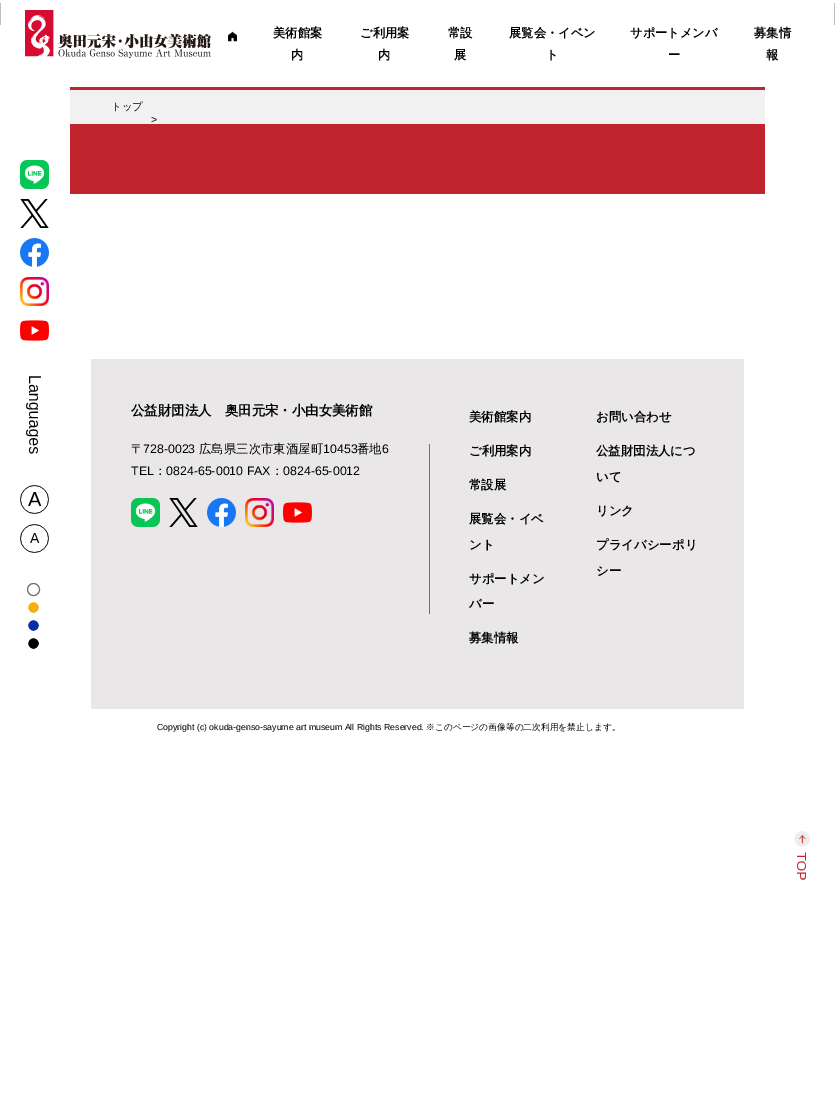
%!PS-Adobe-3.0
%%BoundingBox: 0 0 835 1111
%%LanguageLevel: 3
%%Pages: 1
%%EndComments
%%BeginProlog
/drawimage { 5 dict begin { /h /w /y /x /name } { exch def } forall
  gsave x y translate w h scale
  w h 8 [w 0 0 h 0 0] name (r) file false 3 colorimage grestore end } def
%%EndProlog
%%BeginSetup
<< /PageSize [835 1111] >> setpagedevice
%%EndSetup
%%Page: 1 1
0 1111 translate 1 -1 scale
4 setmiterlimit
1 setgray
0 0 835 1111 rectfill
(images/1.raw) 25 10 186 48 drawimage
0.749 setgray
0 3 1 22 rectfill
834 3 1 22 rectfill
(images/2.raw) 228 31 9 11 drawimage
0.945 setgray
70 90 695 34 rectfill
0.749 0.141 0.184 setrgbcolor
70 87 695 3 rectfill
70 124 695 70 rectfill
(images/3.raw) 20 160 29 29 drawimage
(images/4.raw) 20 199 29 29 drawimage
(images/5.raw) 20 238 29 29 drawimage
(images/6.raw) 20 277 29 29 drawimage
(images/7.raw) 20 320 29 21 drawimage
(images/8.raw) 26 376 15 78 drawimage
(images/9.raw) 20 485 29 29 drawimage
(images/10.raw) 20 524 29 29 drawimage
0.439 setgray
newpath 33.5 589.5 6 0 360 arc closepath stroke
0.969 0.678 0.039 setrgbcolor
newpath 33.5 607.5 5.5 0 360 arc closepath fill
1 setgray
newpath 33.5 607.5 6 0 360 arc closepath stroke
0.035 0.176 0.635 setrgbcolor
newpath 33.5 625.5 5.5 0 360 arc closepath fill
1 setgray
newpath 33.5 625.5 6 0 360 arc closepath stroke
0 setgray
newpath 33.5 643.5 5.5 0 360 arc closepath fill
1 setgray
newpath 33.5 643.5 6 0 360 arc closepath stroke
0.914 0.906 0.906 setrgbcolor
91 359 653 350 rectfill
(images/11.raw) 131 498 29 29 drawimage
(images/12.raw) 169 498 29 29 drawimage
(images/13.raw) 207 498 29 29 drawimage
(images/14.raw) 245 498 29 29 drawimage
(images/15.raw) 283 502 29 21 drawimage
0.439 setgray
429 444 1 170 rectfill
(images/16.raw) 794 831 16 49 drawimage
/WenQuanYiZenHei-Bold [12.25 0 0 -12.25 0 0] selectfont
0 setgray
273 37 moveto (美術館案) show
291 59 moveto (内) show
360 37 moveto (ご利用案) show
378 59 moveto (内) show
448 37 moveto (常設) show
454 59 moveto (展) show
509 37 moveto (展覧会・イベン) show
546 59 moveto (ト) show
630 37 moveto (サポートメンバ) show
668 59 moveto (ー) show
754 37 moveto (募集情) show
766 59 moveto (報) show
/WenQuanYiZenHei-Medium [10.5 0 0 -10.5 0 0] selectfont
111 110 moveto (トップ) show
/LiberationSans-Regular [10.5 0 0 -10.5 0 0] selectfont
151 123 moveto (>) show
/WenQuanYiZenHei-Bold [13.4 0 0 -13.4 0 0] selectfont
131 415 moveto (公益財団法人　奥田元宋・小由女美術館) show
/WenQuanYiZenHei-Medium [12.4 0 0 -12.4 0 0] selectfont
131 453 moveto (〒) show
/LiberationSans-Regular [12.4 0 0 -12.4 0 0] selectfont
143 453 moveto (728-0023) show
/WenQuanYiZenHei-Medium [12.4 0 0 -12.4 0 0] selectfont
199 453 moveto (広島県三次市東酒屋町) show
/LiberationSans-Regular [12.4 0 0 -12.4 0 0] selectfont
323 453 moveto (10453) show
/WenQuanYiZenHei-Medium [12.4 0 0 -12.4 0 0] selectfont
357 453 moveto (番地) show
/LiberationSans-Regular [12.4 0 0 -12.4 0 0] selectfont
382 453 moveto (6) show
131 475 moveto (TEL) show
/WenQuanYiZenHei-Medium [12.4 0 0 -12.4 0 0] selectfont
154 475 moveto (：) show
/LiberationSans-Regular [12.4 0 0 -12.4 0 0] selectfont
166 475 moveto (0824-65-0010 FAX) show
/WenQuanYiZenHei-Medium [12.4 0 0 -12.4 0 0] selectfont
271 475 moveto (：) show
/LiberationSans-Regular [12.4 0 0 -12.4 0 0] selectfont
283 475 moveto (0824-65-0012) show
/WenQuanYiZenHei-Bold [12.4 0 0 -12.4 0 0] selectfont
469 421 moveto (美術館案内) show
469 455 moveto (ご利用案内) show
469 489 moveto (常設展) show
469 523 moveto (展覧会・イベ) show
469 549 moveto (ント) show
469 583 moveto (サポートメン) show
469 608 moveto (バー) show
469 642 moveto (募集情報) show
596 421 moveto (お問い合わせ) show
596 455 moveto (公益財団法人につ) show
596 481 moveto (いて) show
596 515 moveto (リンク) show
596 549 moveto (プライバシーポリ) show
596 575 moveto (シー) show
/LiberationSans-Regular [8.75 0 0 -8.75 0 0] selectfont
157 730 moveto (Copyright \(c\) okuda-genso-sayume art museum All Rights Reserved.) show
/WenQuanYiZenHei-Medium [8.75 0 0 -8.75 0 0] selectfont
426 730 moveto (※このページの画像等の二次利用を禁止します。) show
showpage
%%EOF
